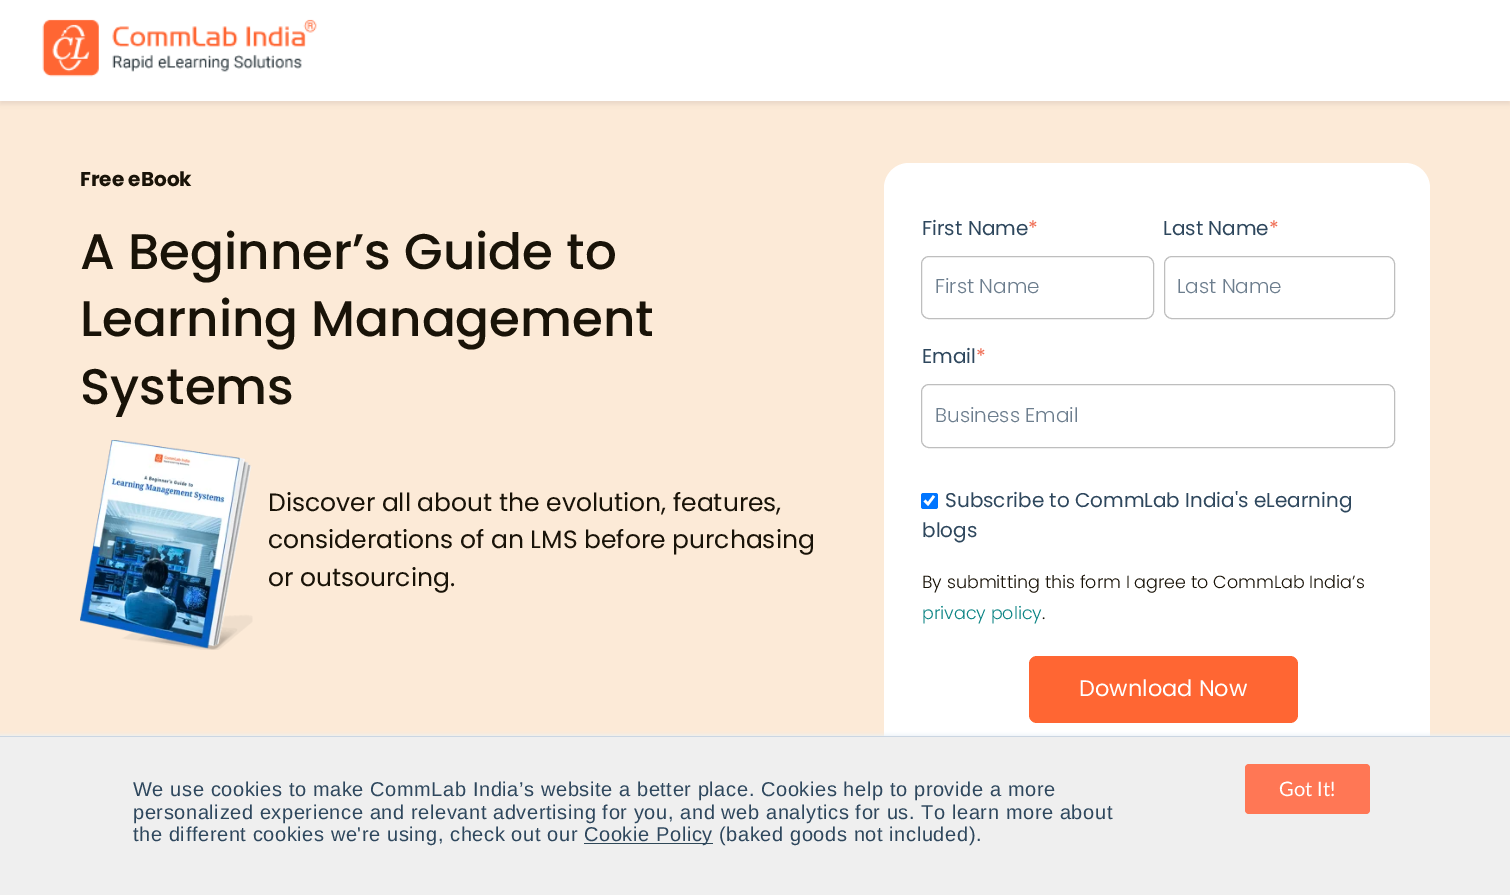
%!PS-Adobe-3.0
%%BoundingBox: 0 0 1510 895
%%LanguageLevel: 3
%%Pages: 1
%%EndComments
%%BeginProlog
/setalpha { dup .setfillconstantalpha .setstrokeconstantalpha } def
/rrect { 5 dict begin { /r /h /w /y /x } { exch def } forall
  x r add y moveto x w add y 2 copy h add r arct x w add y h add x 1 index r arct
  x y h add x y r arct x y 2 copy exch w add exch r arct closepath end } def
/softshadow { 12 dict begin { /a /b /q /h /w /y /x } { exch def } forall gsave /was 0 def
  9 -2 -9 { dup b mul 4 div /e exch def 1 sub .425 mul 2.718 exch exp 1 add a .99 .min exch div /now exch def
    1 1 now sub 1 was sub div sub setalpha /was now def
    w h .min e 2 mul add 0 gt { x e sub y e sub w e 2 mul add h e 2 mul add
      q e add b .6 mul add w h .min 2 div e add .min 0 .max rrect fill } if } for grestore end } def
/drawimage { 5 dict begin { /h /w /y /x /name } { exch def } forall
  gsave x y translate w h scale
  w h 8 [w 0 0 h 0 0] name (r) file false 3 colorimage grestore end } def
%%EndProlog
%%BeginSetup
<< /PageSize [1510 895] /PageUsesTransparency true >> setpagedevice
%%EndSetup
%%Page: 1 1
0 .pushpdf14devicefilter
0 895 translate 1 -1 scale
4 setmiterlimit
0.988 0.918 0.843 setrgbcolor
0 0 1510 895 rectfill
0 setgray
0 3 1510 101 0 2.5 0.07 softshadow
1 setgray
0 0 1510 101 rectfill
(images/1.raw) 42 19 275 58 drawimage
(images/2.raw) 80 440 173 210 drawimage
884 163 546 603 25 rrect fill
0.745 setgray
921.5 256.5 232 62 7.5 rrect stroke
1164.5 256.5 230 62 7.5 rrect stroke
921.5 384.5 473 63 7.5 rrect stroke
0 0.459 1 setrgbcolor
921 493 17 16 2.5 rrect fill
1 setgray
2.6 setlinewidth
newpath 924.5 500.5 moveto 928 504 lineto 934 496 lineto stroke
1 0.4 0.2 setrgbcolor
1029 656 269 67 8 rrect fill
0.918 0.941 0.965 setrgbcolor
0 735 1510 159 0 2 1 softshadow
0.937 setgray
0 737 1510 158 rectfill
0.796 0.839 0.886 setrgbcolor
0 736 1510 1 rectfill
0.184 0.282 0.345 setrgbcolor
584 843 129 1 rectfill
1 0.467 0.333 setrgbcolor
1245 764 125 50 4 rrect fill
/Poppins-Bold [20 0 0 -20 0 0] selectfont
0.098 0.075 0.031 setrgbcolor
80 186 moveto (Free eBook) show
/Poppins-Medium [50 0 0 -50 0 0] selectfont
80 269 moveto (A Beginner’s Guide to) show
80 336 moveto (Learning Management) show
80 404 moveto (Systems) show
/Poppins-Regular [25 0 0 -25 0 0] selectfont
268 511 moveto (Discover all about the evolution, features,) show
268 548 moveto (considerations of an LMS before purchasing) show
268 586 moveto (or outsourcing.) show
/Poppins-Regular [20 0 0 -20 0 0] selectfont
0.18 0.278 0.365 setrgbcolor
922 235 moveto (First Name) show
0.937 0.42 0.318 setrgbcolor
1028 235 moveto (*) show
/Poppins-Light [20 0 0 -20 0 0] selectfont
0.427 0.494 0.557 setrgbcolor
935 293 moveto (First Name) show
/Poppins-Regular [20 0 0 -20 0 0] selectfont
0.18 0.278 0.365 setrgbcolor
1163 235 moveto (Last Name) show
0.937 0.42 0.318 setrgbcolor
1269 235 moveto (*) show
/Poppins-Light [20 0 0 -20 0 0] selectfont
0.427 0.494 0.557 setrgbcolor
1177 293 moveto (Last Name) show
/Poppins-Regular [20 0 0 -20 0 0] selectfont
0.18 0.278 0.365 setrgbcolor
922 363 moveto (Email) show
0.937 0.42 0.318 setrgbcolor
976 363 moveto (*) show
/Poppins-Light [20 0 0 -20 0 0] selectfont
0.427 0.494 0.557 setrgbcolor
935 422 moveto (Business Email) show
/Poppins-Regular [20 0 0 -20 0 0] selectfont
0.18 0.278 0.365 setrgbcolor
945 507 moveto (Subscribe to CommLab India's eLearning) show
922 537 moveto (blogs) show
/Poppins-Light [17.5 0 0 -17.5 0 0] selectfont
0.098 0.075 0.031 setrgbcolor
922 588 moveto (By submitting this form I agree to CommLab India’s) show
0.043 0.518 0.518 setrgbcolor
922 619 moveto (privacy policy) show
0.098 0.075 0.031 setrgbcolor
1042 619 moveto (.) show
/Poppins-Regular [22.5 0 0 -22.5 0 0] selectfont
1 setgray
1079 696 moveto (Download Now) show
/LiberationSans-Regular [20 0 0 -20 0 0] selectfont
0.18 0.278 0.365 setrgbcolor
133 796 moveto 0.6 0 (We use cookies to make CommLab India’s website a better place. Cookies help to provide a more) ashow
133 819 moveto 0.6 0 (personalized experience and relevant advertising for you, and web analytics for us. To learn more about) ashow
133 841 moveto 0.6 0 (the different cookies we're using, check out our) ashow
584 841 moveto 0.6 0 (Cookie Policy \(baked goods not included\).) ashow
/Lato-Regular [20 0 0 -20 0 0] selectfont
1 setgray
1279 796 moveto (Got It!) show
.poppdf14devicefilter showpage
%%EOF
